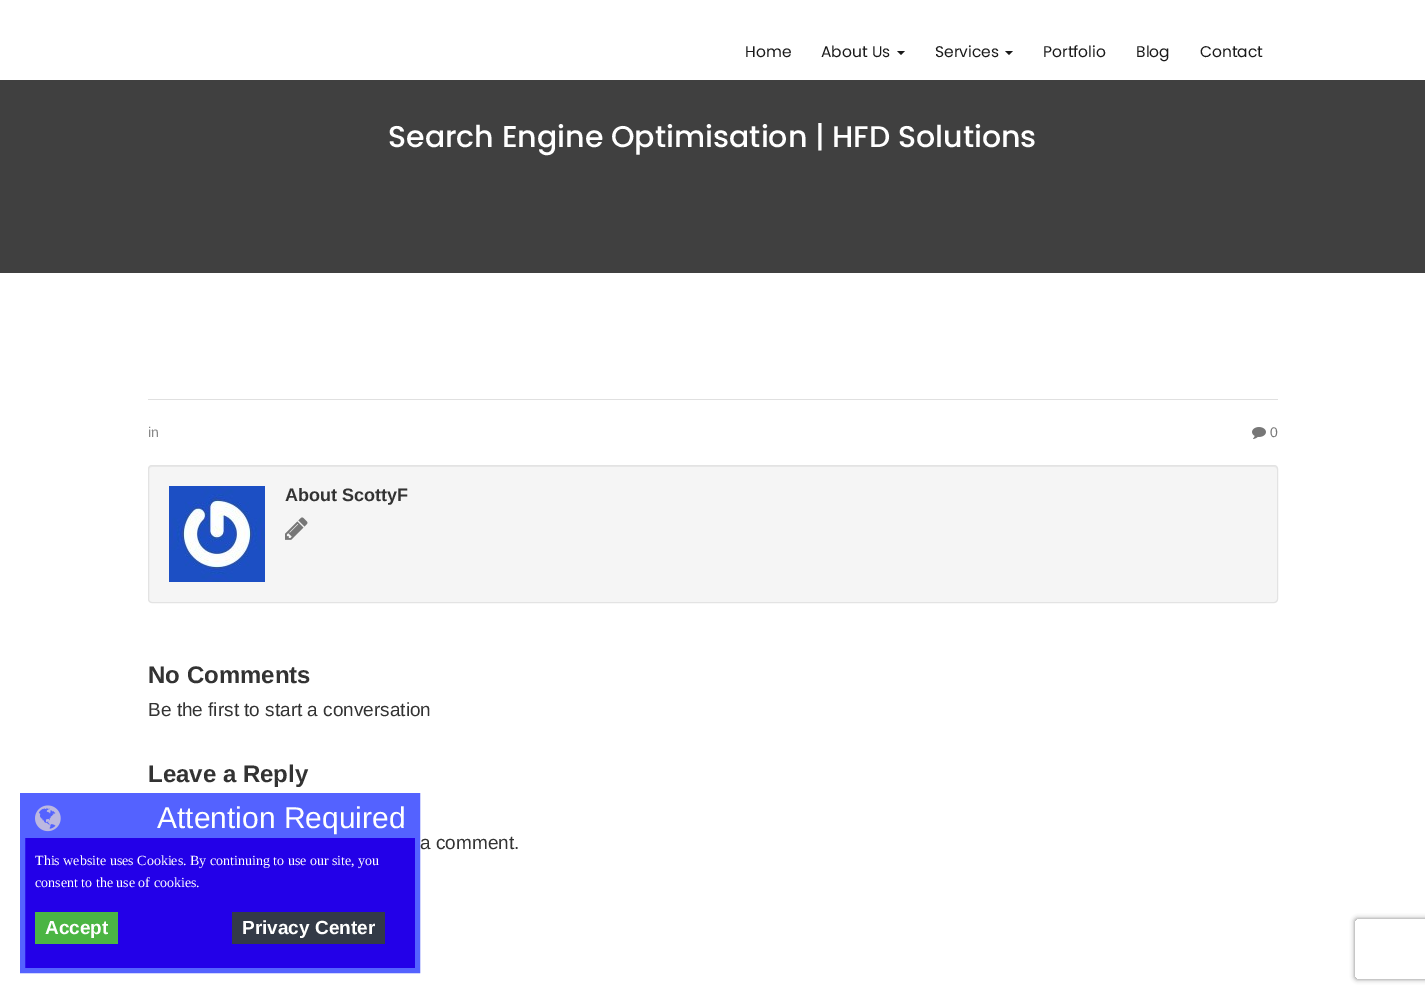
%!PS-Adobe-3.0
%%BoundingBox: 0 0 1425 993
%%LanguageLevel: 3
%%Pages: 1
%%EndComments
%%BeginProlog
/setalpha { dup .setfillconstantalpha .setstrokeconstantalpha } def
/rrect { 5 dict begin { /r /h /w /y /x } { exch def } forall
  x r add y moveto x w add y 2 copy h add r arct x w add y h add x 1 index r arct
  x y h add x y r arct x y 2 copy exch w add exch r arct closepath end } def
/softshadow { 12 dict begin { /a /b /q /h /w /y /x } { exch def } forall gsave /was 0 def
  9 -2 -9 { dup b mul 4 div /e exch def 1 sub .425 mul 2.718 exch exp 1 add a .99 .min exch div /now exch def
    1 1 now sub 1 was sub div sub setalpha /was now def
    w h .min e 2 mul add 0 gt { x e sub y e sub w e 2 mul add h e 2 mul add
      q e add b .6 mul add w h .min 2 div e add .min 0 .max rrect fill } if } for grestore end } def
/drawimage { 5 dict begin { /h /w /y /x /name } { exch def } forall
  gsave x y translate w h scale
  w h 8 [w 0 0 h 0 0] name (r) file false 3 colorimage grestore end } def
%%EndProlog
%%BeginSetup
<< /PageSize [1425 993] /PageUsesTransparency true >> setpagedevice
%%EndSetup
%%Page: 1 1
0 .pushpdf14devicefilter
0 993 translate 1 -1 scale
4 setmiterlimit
1 setgray
0 0 1425 993 rectfill
0.102 setgray
newpath 897 51 moveto 905 51 lineto 901 55 lineto closepath fill
newpath 1005 51 moveto 1013 51 lineto 1009 55 lineto closepath fill
0.251 setgray
0 80 1425 193 rectfill
0.878 setgray
148 399 1130 1 rectfill
(images/1.raw) 1252 427 14 12 drawimage
0.961 setgray
148 465 1130 138 4 rrect fill
0.914 setgray
newpath 152 467 moveto 1274 467 lineto 1276 467 1277 468 1277 470 curveto 1277 469 lineto 1277 467 1276 466 1274 466 curveto 152 466 lineto 150 466 149 467 149 469 curveto 149 470 lineto 149 468 150 467 152 467 curveto closepath fill
0.89 setgray
148.5 465.5 1129 137 3.5 rrect stroke
(images/2.raw) 169 486 96 96 drawimage
(images/3.raw) 285 517 23 23 drawimage
0.137 0 0.91 setrgbcolor
newpath 24 793 moveto 416 793 lineto 418 793 420 794 420 795 curveto 420 971 lineto 420 972 418 973 416 973 curveto 24 973 lineto 22 973 20 972 20 971 curveto 20 795 lineto 20 794 22 793 24 793 curveto closepath fill
0.329 0.384 1 setrgbcolor
5 setlinewidth
newpath 24 795.5 moveto 417.5 795.5 lineto 417.5 970.5 lineto 22.5 970.5 lineto 22.5 795.5 lineto closepath stroke
25 798 390 40 rectfill
(images/4.raw) 35 805 26 27 drawimage
0.294 0.71 0.263 setrgbcolor
35 912 83 32 rectfill
0.2 0.227 0.278 setrgbcolor
232 912 153 32 rectfill
gsave
newpath 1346 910 moveto 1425 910 lineto 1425 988 lineto 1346 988 lineto closepath 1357 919 moveto 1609 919 lineto 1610 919 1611 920 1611 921 curveto 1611 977 lineto 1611 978 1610 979 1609 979 curveto 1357 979 lineto 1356 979 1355 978 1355 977 curveto 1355 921 lineto 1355 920 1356 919 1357 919 curveto closepath eoclip newpath
0.502 setgray
1355 919 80 60 2 2.5 1 softshadow
grestore
/Poppins-Regular [15.5 0 0 -15.5 0 0] selectfont
0.102 setgray
745 57 moveto (Home) show
821 57 moveto (About Us) show
935 57 moveto (Services) show
1043 57 moveto (Portfolio) show
1136 57 moveto (Blog) show
1200 57 moveto (Contact) show
/Poppins-Medium [30 0 0 -30 0 0] selectfont
1 setgray
388 147 moveto (Search Engine Optimisation | HFD Solutions) show
/LiberationSans-Regular [14 0 0 -14 0 0] selectfont
0.533 setgray
148 437 moveto (in) show
0.467 setgray
1270 437 moveto (0) show
/LiberationSans-Bold [18 0 0 -18 0 0] selectfont
0.2 setgray
285 501 moveto (About ScottyF) show
/LiberationSans-Bold [24 0 0 -24 0 0] selectfont
148 683 moveto (No Comments) show
/LiberationSans-Regular [19 0 0 -19 0 0] selectfont
148 716 moveto (Be the first to start a conversation) show
/LiberationSans-Bold [24 0 0 -24 0 0] selectfont
148 782 moveto (Leave a Reply) show
/LiberationSans-Regular [19 0 0 -19 0 0] selectfont
420 849 moveto (a comment.) show
/LiberationSans-Regular [30 0 0 -30 0 0] selectfont
1 setgray
157 828 moveto (Attention Required) show
/LiberationSerif-Regular [14 0 0 -14 0 0] selectfont
35 865 moveto (This website uses Cookies. By continuing to use our site, you) show
35 887 moveto (consent to the use of cookies.) show
/LiberationSans-Bold [19 0 0 -19 0 0] selectfont
45 934 moveto (Accept) show
242 934 moveto (Privacy Center) show
.poppdf14devicefilter showpage
%%EOF
